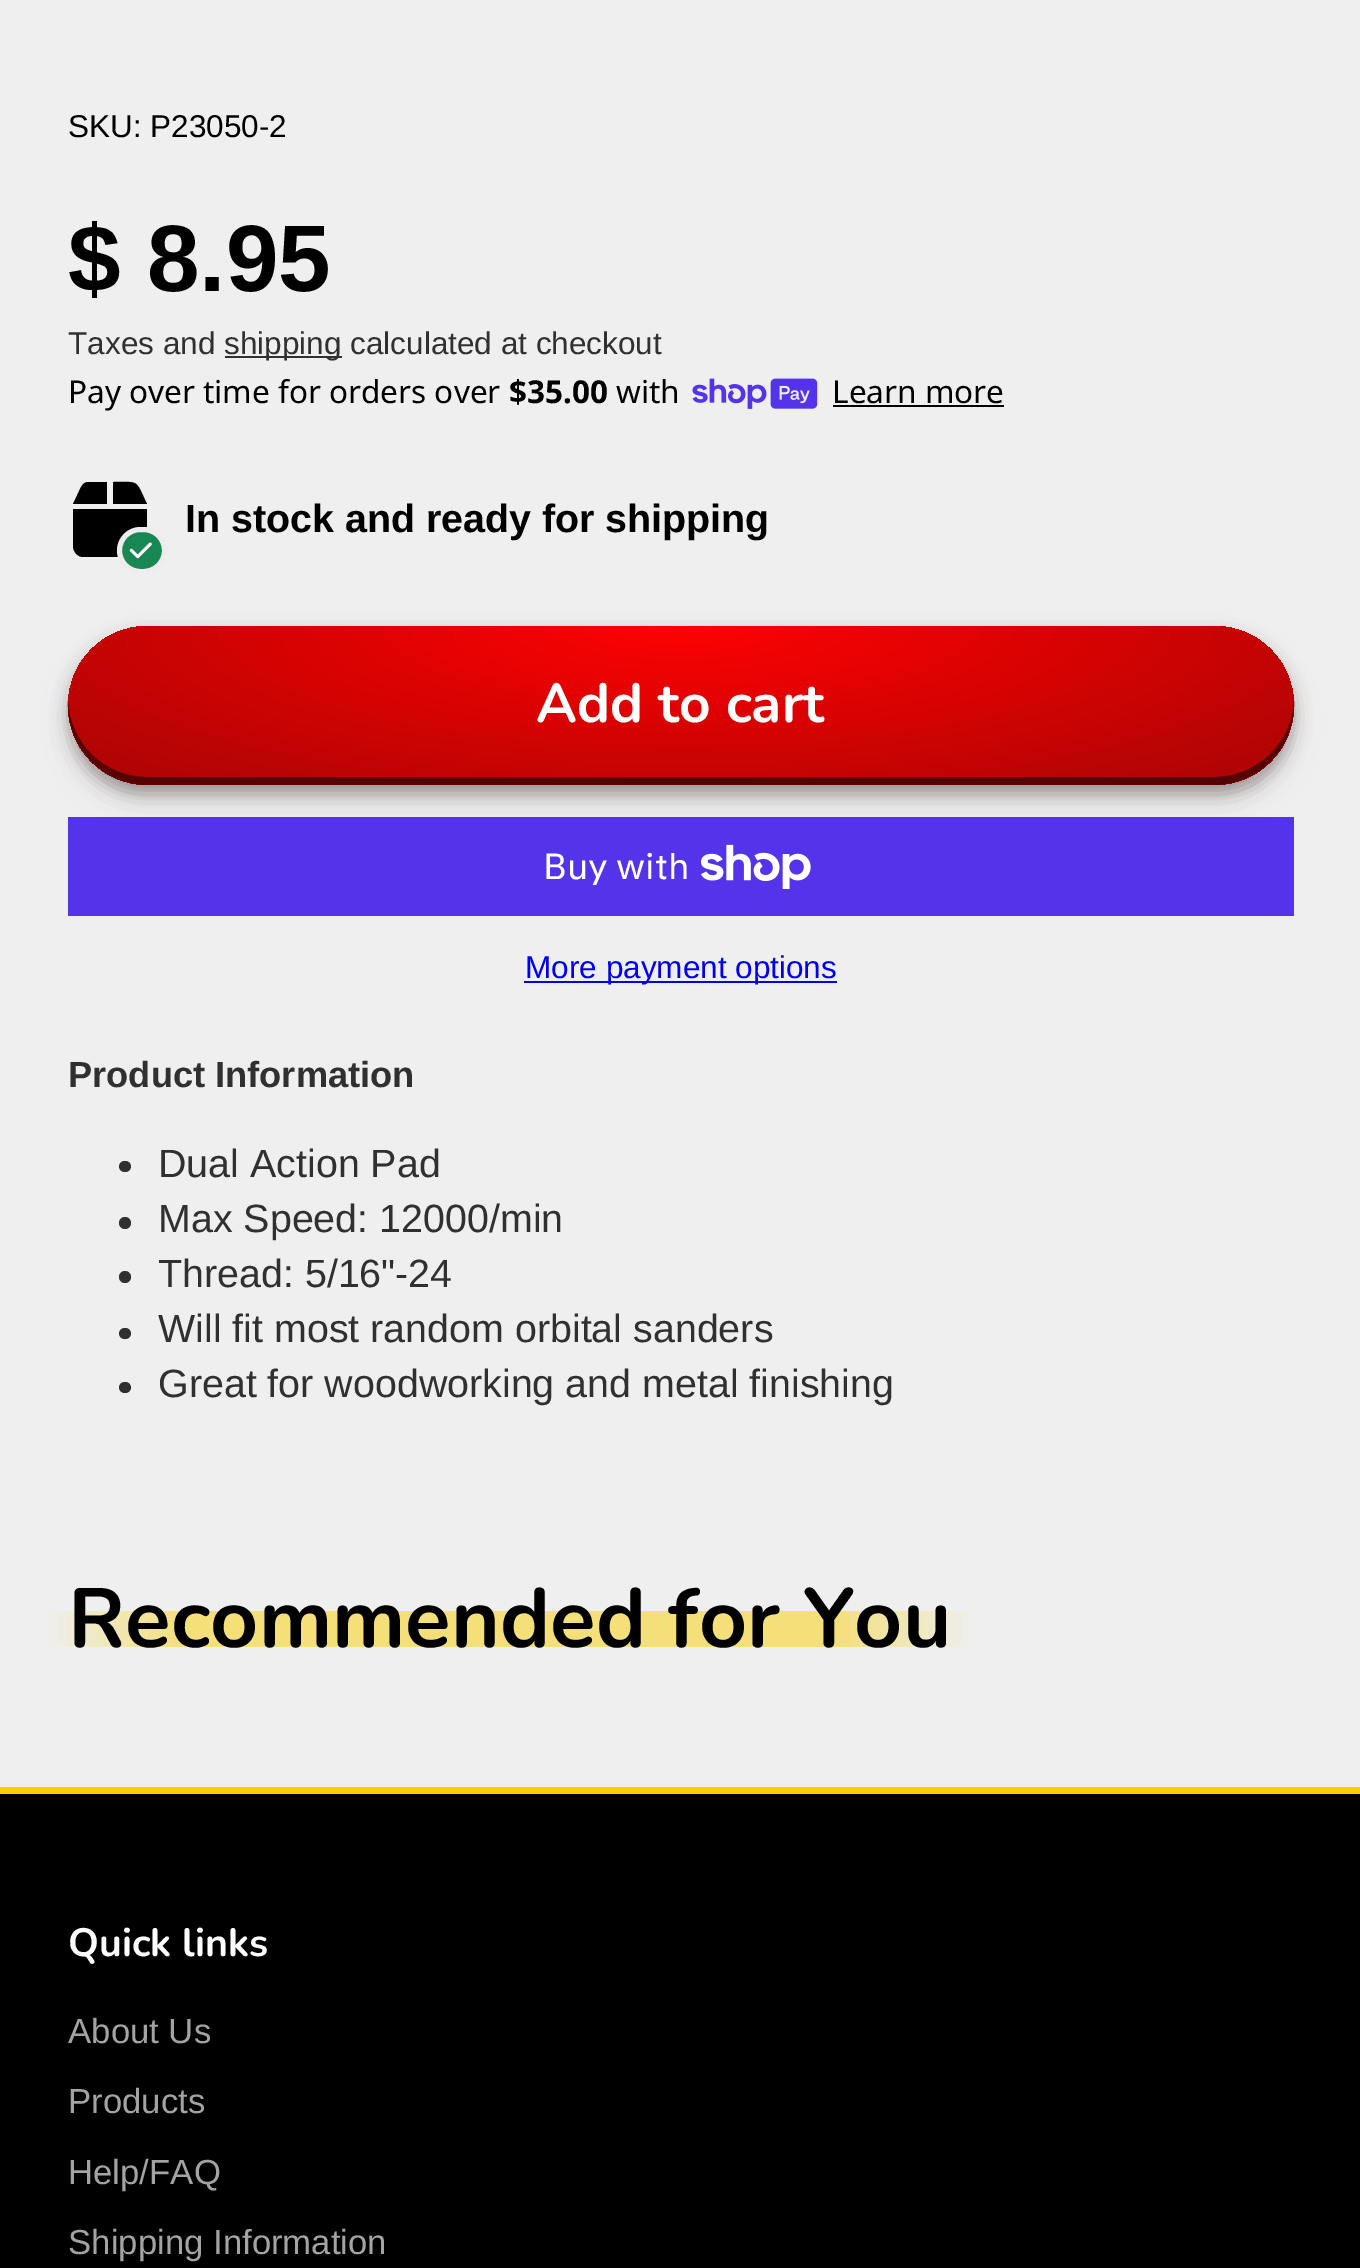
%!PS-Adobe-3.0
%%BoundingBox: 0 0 1360 2268
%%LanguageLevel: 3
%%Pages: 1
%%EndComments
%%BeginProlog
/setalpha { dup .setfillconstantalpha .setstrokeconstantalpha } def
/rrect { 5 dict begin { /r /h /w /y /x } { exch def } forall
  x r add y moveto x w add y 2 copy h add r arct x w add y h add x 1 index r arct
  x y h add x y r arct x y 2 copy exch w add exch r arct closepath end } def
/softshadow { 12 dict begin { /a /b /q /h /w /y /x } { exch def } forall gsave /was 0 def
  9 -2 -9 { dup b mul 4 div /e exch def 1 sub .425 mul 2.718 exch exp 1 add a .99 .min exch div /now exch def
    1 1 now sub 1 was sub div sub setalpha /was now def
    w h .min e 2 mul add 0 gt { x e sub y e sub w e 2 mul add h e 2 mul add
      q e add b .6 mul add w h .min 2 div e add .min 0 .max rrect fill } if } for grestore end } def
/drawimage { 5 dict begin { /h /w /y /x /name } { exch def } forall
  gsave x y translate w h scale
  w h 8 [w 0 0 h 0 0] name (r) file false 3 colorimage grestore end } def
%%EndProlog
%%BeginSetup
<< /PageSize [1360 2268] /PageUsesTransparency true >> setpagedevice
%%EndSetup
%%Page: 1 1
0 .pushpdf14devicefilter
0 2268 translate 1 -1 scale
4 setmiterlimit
0.937 setgray
0 0 1360 2268 rectfill
0.188 setgray
225 356 117 2 rectfill
(images/1.raw) 692 378 126 31 drawimage
0 setgray
833 405 171 2 rectfill
newpath 81 487 moveto 73 504 lineto 107 504 lineto 107 482 lineto 88 482 lineto 85 482 83 484 81 487 curveto closepath 113 504 moveto 147 504 lineto 135 479 140 482 113 482 curveto closepath 147 509 moveto 73 509 lineto 73 546 lineto 73 552 78 557 83 557 curveto 137 557 lineto 142 557 147 552 147 546 curveto closepath fill
0.098 0.529 0.329 setrgbcolor
119.5 529.5 45 42 21 rrect gsave fill grestore
0.929 setgray
5 setlinewidth
stroke
(images/2.raw) 129 542 23 17 drawimage
0.329 0.2 0.922 setrgbcolor
68 817 1226 99 rectfill
(images/3.raw) 701 844 110 45 drawimage
0.106 0.004 0.004 setrgbcolor
77 650 1208 144 72 16.5 0.15 softshadow
68 635 1226 159 79.5 8.5 0.3 softshadow
gsave
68 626 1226 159 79.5 rrect clip newpath
77 650 1208 144 72 16.5 0.15 softshadow
68 635 1226 159 79.5 8.5 0.3 softshadow
grestore
gsave 68 626 1226 159 79.5 rrect clip newpath 681 626 translate 867 226 scale
<< /ShadingType 3 /ColorSpace /DeviceRGB /Coords [0 0 0 0 0 1] /Extend [true true] /Function << /FunctionType 3 /Domain [0 1] /Functions [<< /FunctionType 2 /Domain [0 1] /C0 [1 0.008 0.008] /C1 [0.694 0.016 0.016] /N 1 >> << /FunctionType 2 /Domain [0 1] /C0 [0.694 0.016 0.016] /C1 [0.694 0.016 0.016] /N 1 >>] /Bounds [0.9] /Encode [0 1 0 1] >> >> shfill grestore
0.341 0.008 0.008 setrgbcolor
newpath 68 701 moveto 66 747 102 785 148 785 curveto 1214 785 lineto 1260 785 1296 747 1294 701 curveto 1292 743 1257 777 1214 777 curveto 147 777 lineto 104 777 70 743 68 701 curveto closepath fill
0 0 0.933 setrgbcolor
524 981 313 2 rectfill
0.188 setgray
119 1161 12 11 5.5 rrect fill
newpath 125 1223 6 0 360 arc closepath fill
newpath 125 1277 6 0 360 arc closepath fill
119 1328 12 11 5.5 rrect fill
119 1382 12 11 5.5 rrect fill
gsave newpath 50 1611 moveto 969 1611 lineto 969 1647 lineto 50 1647 lineto closepath clip newpath
<< /ShadingType 2 /ColorSpace /DeviceRGB /Coords [47 1629 972 1629] /Extend [true true] /Function << /FunctionType 3 /Domain [0 1] /Functions [<< /FunctionType 2 /Domain [0 1] /C0 [0.937 0.937 0.937] /C1 [0.961 0.875 0.471] /N 1 >> << /FunctionType 2 /Domain [0 1] /C0 [0.961 0.875 0.471] /C1 [0.961 0.875 0.471] /N 1 >> << /FunctionType 2 /Domain [0 1] /C0 [0.961 0.875 0.471] /C1 [0.937 0.937 0.937] /N 1 >>] /Bounds [0.15 0.85] /Encode [0 1 0 1 0 1] >> >> shfill grestore
0 setgray
0 1794 1360 474 rectfill
0.984 0.812 0 setrgbcolor
0 1787 1360 7 rectfill
/LiberationSans-Regular [31.5 0 0 -31.5 0 0] selectfont
0 setgray
68 137 moveto (SKU: P23050-2) show
/LiberationSans-Bold [94.5 0 0 -94.5 0 0] selectfont
68 291 moveto ($ 8.95) show
/LiberationSans-Regular [31.5 0 0 -31.5 0 0] selectfont
0.188 setgray
68 354 moveto (Taxes and) show
224 354 moveto (shipping calculated at checkout) show
/NotoSans-Regular [31.5 0 0 -31.5 0 0] selectfont
0 setgray
68 403 moveto (Pay over time for orders over) show
/NotoSans-Bold [31.5 0 0 -31.5 0 0] selectfont
509 403 moveto ($35.00) show
/NotoSans-Regular [31.5 0 0 -31.5 0 0] selectfont
616 403 moveto (with) show
832 403 moveto (Learn more) show
/LiberationSans-Bold [39.4 0 0 -39.4 0 0] selectfont
185 532 moveto (In stock and ready for shipping) show
/Nunito-Bold [55 0 0 -55 0 0] selectfont
1 setgray
536 722 moveto (Add to cart) show
/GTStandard-Regular [36 0 0 -36 0 0] selectfont
543 879 moveto (Buy with) show
/LiberationSans-Regular [31.5 0 0 -31.5 0 0] selectfont
0 0 0.933 setrgbcolor
525 978 moveto (More payment options) show
/LiberationSans-Bold [36.25 0 0 -36.25 0 0] selectfont
0.188 setgray
68 1087 moveto (Product Information) show
/LiberationSans-Regular [39.4 0 0 -39.4 0 0] selectfont
158 1177 moveto (Dual Action Pad) show
158 1232 moveto (Max Speed: 12000/min) show
158 1287 moveto (Thread: 5/16"-24) show
158 1342 moveto (Will fit most random orbital sanders) show
158 1397 moveto (Great for woodworking and metal finishing) show
/Nunito-Bold [83.75 0 0 -83.75 0 0] selectfont
0 setgray
68 1647 moveto (Recommended for You) show
/Nunito-Bold [39.4 0 0 -39.4 0 0] selectfont
1 setgray
68 1956 moveto (Quick links) show
/LiberationSans-Regular [34.75 0 0 -34.75 0 0] selectfont
0.639 setgray
68 2043 moveto (About Us) show
68 2113 moveto (Products) show
68 2184 moveto (Help/FAQ) show
68 2254 moveto (Shipping Information) show
.poppdf14devicefilter showpage
%%EOF
